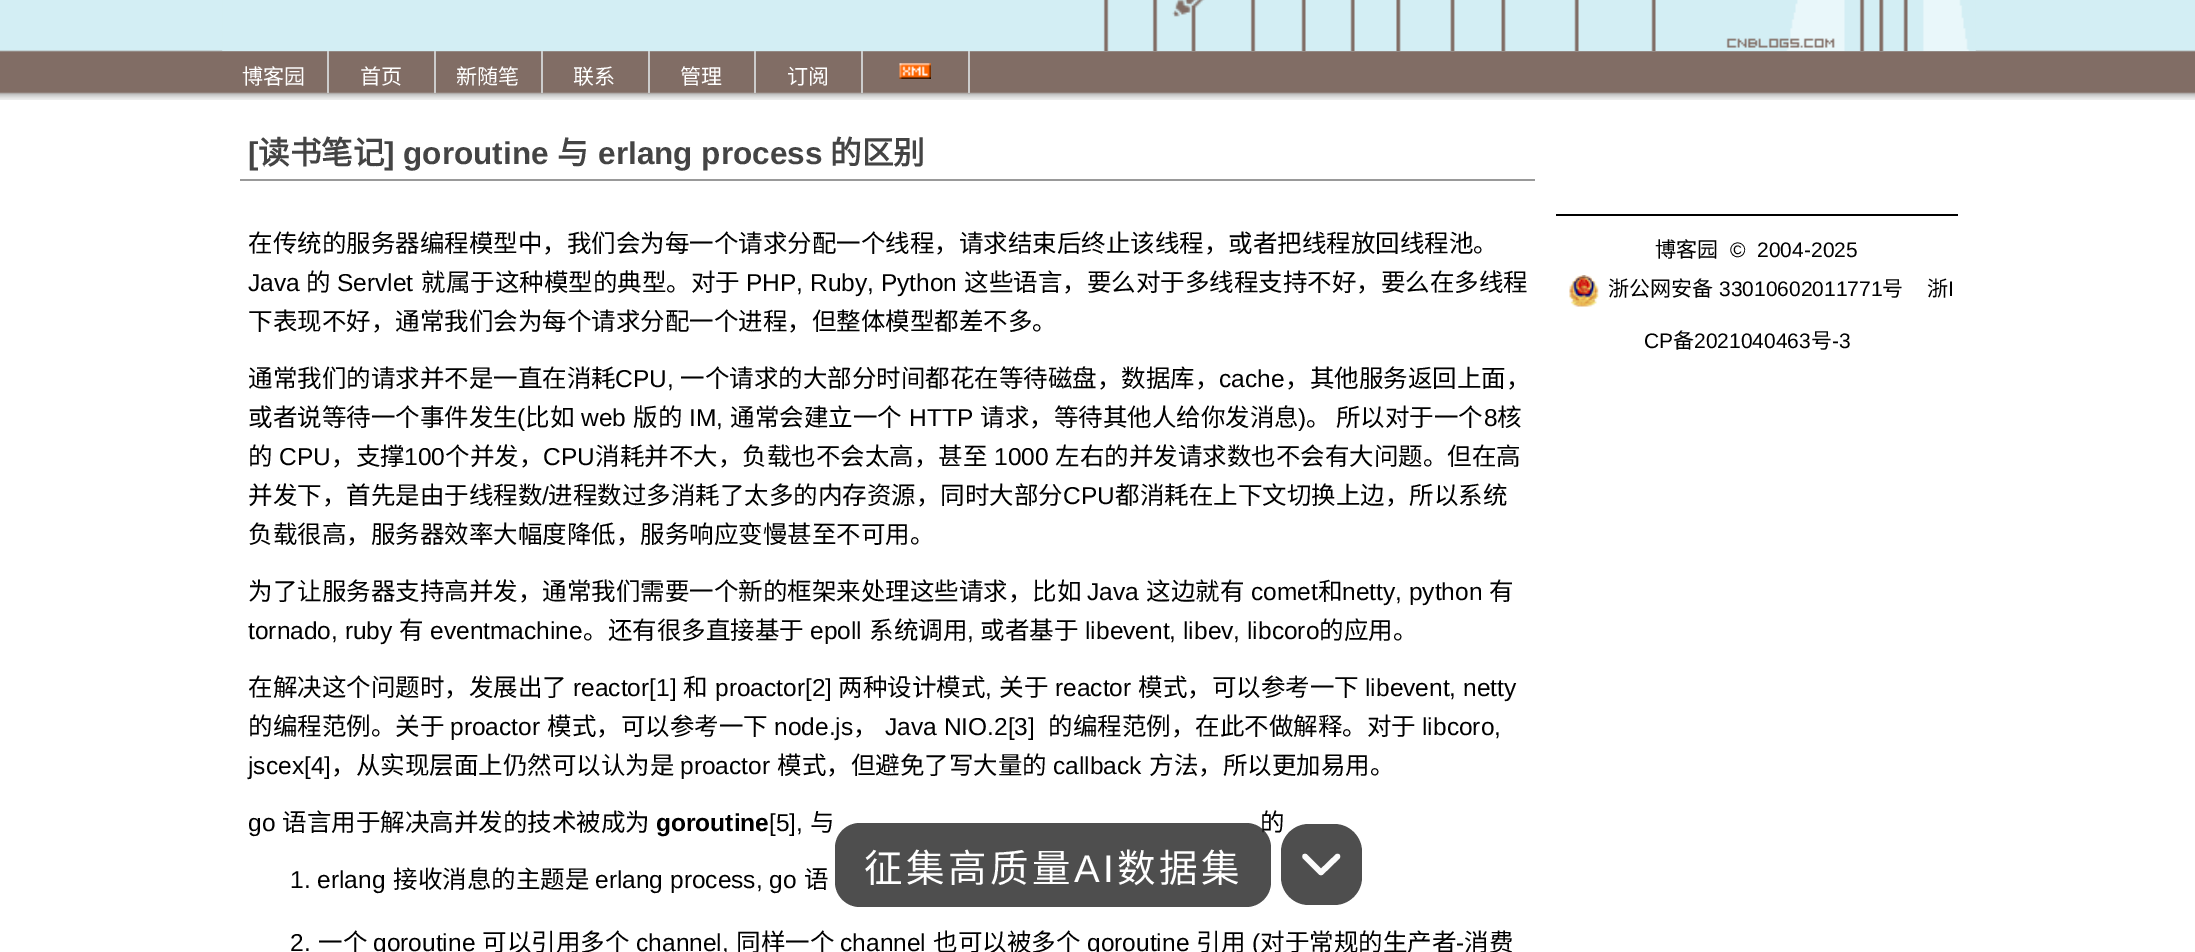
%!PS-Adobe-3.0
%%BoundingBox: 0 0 2195 952
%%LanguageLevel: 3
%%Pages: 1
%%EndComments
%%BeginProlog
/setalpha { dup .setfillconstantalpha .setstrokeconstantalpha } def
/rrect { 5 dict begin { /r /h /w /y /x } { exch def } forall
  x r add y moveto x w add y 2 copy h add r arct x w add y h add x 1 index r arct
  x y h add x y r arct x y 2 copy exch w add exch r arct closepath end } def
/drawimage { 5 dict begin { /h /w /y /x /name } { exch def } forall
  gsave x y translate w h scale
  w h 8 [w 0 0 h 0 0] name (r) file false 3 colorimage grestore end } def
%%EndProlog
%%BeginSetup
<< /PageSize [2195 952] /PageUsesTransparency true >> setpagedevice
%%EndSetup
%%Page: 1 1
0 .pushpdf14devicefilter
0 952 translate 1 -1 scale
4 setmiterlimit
1 setgray
0 0 2195 952 rectfill
(images/1.raw) 0 0 2195 100 drawimage
(images/2.raw) 222 0 1754 51 drawimage
0.8 setgray
327 51 2 42 rectfill
434 51 2 42 rectfill
541 51 2 42 rectfill
648 51 2 42 rectfill
754 51 2 42 rectfill
861 51 2 42 rectfill
968 51 2 42 rectfill
(images/3.raw) 899 63 32 16 drawimage
0.6 setgray
240 179 1295 2 rectfill
0 setgray
1556 214 402 2 rectfill
(images/4.raw) 1569 275 30 32 drawimage
/NotoSansCJKSC-Regular [21 0 0 -21 0 0] selectfont
1 setgray
242 84 moveto (博客园) show
360 84 moveto (首页) show
456 84 moveto (新随笔) show
573 84 moveto (联系) show
680 84 moveto (管理) show
787 84 moveto (订阅) show
/LiberationSans-Bold [31.5 0 0 -31.5 0 0] selectfont
0.267 setgray
248 164 moveto ([) show
/NotoSansCJKSC-Bold [31.5 0 0 -31.5 0 0] selectfont
258 164 moveto (读书笔记) show
/LiberationSans-Bold [31.5 0 0 -31.5 0 0] selectfont
384 164 moveto (] goroutine) show
/NotoSansCJKSC-Bold [31.5 0 0 -31.5 0 0] selectfont
557 164 moveto (与) show
/LiberationSans-Bold [31.5 0 0 -31.5 0 0] selectfont
598 164 moveto (erlang process) show
/NotoSansCJKSC-Bold [31.5 0 0 -31.5 0 0] selectfont
830 164 moveto (的区别) show
/NotoSansCJKSC-Regular [24.5 0 0 -24.5 0 0] selectfont
0 setgray
248 252 moveto (在传统的服务器编程模型中，我们会为每一个请求分配一个线程，请求结束后终止该线程，或者把线程放回线程池。) show
/LiberationSans-Regular [24.5 0 0 -24.5 0 0] selectfont
248 291 moveto (Java) show
/NotoSansCJKSC-Regular [24.5 0 0 -24.5 0 0] selectfont
306 291 moveto (的) show
/LiberationSans-Regular [24.5 0 0 -24.5 0 0] selectfont
337 291 moveto (Servlet) show
/NotoSansCJKSC-Regular [24.5 0 0 -24.5 0 0] selectfont
421 291 moveto (就属于这种模型的典型。对于) show
/LiberationSans-Regular [24.5 0 0 -24.5 0 0] selectfont
746 291 moveto (PHP, Ruby, Python) show
/NotoSansCJKSC-Regular [24.5 0 0 -24.5 0 0] selectfont
964 291 moveto (这些语言，要么对于多线程支持不好，要么在多线程) show
248 330 moveto (下表现不好，通常我们会为每个请求分配一个进程，但整体模型都差不多。) show
248 387 moveto (通常我们的请求并不是一直在消耗) show
/LiberationSans-Regular [24.5 0 0 -24.5 0 0] selectfont
615 387 moveto (CPU,) show
/NotoSansCJKSC-Regular [24.5 0 0 -24.5 0 0] selectfont
680 387 moveto (一个请求的大部分时间都花在等待磁盘，数据库，) show
/LiberationSans-Regular [24.5 0 0 -24.5 0 0] selectfont
1219 387 moveto (cache) show
/NotoSansCJKSC-Regular [24.5 0 0 -24.5 0 0] selectfont
1285 387 moveto (，其他服务返回上面，) show
248 426 moveto (或者说等待一个事件发生) show
/LiberationSans-Regular [24.5 0 0 -24.5 0 0] selectfont
517 426 moveto (\() show
/NotoSansCJKSC-Regular [24.5 0 0 -24.5 0 0] selectfont
525 426 moveto (比如) show
/LiberationSans-Regular [24.5 0 0 -24.5 0 0] selectfont
581 426 moveto (web) show
/NotoSansCJKSC-Regular [24.5 0 0 -24.5 0 0] selectfont
633 426 moveto (版的) show
/LiberationSans-Regular [24.5 0 0 -24.5 0 0] selectfont
689 426 moveto (IM,) show
/NotoSansCJKSC-Regular [24.5 0 0 -24.5 0 0] selectfont
730 426 moveto (通常会建立一个) show
/LiberationSans-Regular [24.5 0 0 -24.5 0 0] selectfont
909 426 moveto (HTTP) show
/NotoSansCJKSC-Regular [24.5 0 0 -24.5 0 0] selectfont
980 426 moveto (请求，等待其他人给你发消息) show
/LiberationSans-Regular [24.5 0 0 -24.5 0 0] selectfont
1298 426 moveto (\)) show
/NotoSansCJKSC-Regular [24.5 0 0 -24.5 0 0] selectfont
1306 426 moveto (。 所以对于一个) show
/LiberationSans-Regular [24.5 0 0 -24.5 0 0] selectfont
1484 426 moveto (8) show
/NotoSansCJKSC-Regular [24.5 0 0 -24.5 0 0] selectfont
1497 426 moveto (核) show
248 465 moveto (的) show
/LiberationSans-Regular [24.5 0 0 -24.5 0 0] selectfont
279 465 moveto (CPU) show
/NotoSansCJKSC-Regular [24.5 0 0 -24.5 0 0] selectfont
331 465 moveto (，支撑) show
/LiberationSans-Regular [24.5 0 0 -24.5 0 0] selectfont
404 465 moveto (100) show
/NotoSansCJKSC-Regular [24.5 0 0 -24.5 0 0] selectfont
445 465 moveto (个并发，) show
/LiberationSans-Regular [24.5 0 0 -24.5 0 0] selectfont
543 465 moveto (CPU) show
/NotoSansCJKSC-Regular [24.5 0 0 -24.5 0 0] selectfont
595 465 moveto (消耗并不大，负载也不会太高，甚至) show
/LiberationSans-Regular [24.5 0 0 -24.5 0 0] selectfont
994 465 moveto (1000) show
/NotoSansCJKSC-Regular [24.5 0 0 -24.5 0 0] selectfont
1055 465 moveto (左右的并发请求数也不会有大问题。但在高) show
248 504 moveto (并发下，首先是由于线程数) show
/LiberationSans-Regular [24.5 0 0 -24.5 0 0] selectfont
542 504 moveto (/) show
/NotoSansCJKSC-Regular [24.5 0 0 -24.5 0 0] selectfont
548 504 moveto (进程数过多消耗了太多的内存资源，同时大部分) show
/LiberationSans-Regular [24.5 0 0 -24.5 0 0] selectfont
1063 504 moveto (CPU) show
/NotoSansCJKSC-Regular [24.5 0 0 -24.5 0 0] selectfont
1115 504 moveto (都消耗在上下文切换上边，所以系统) show
248 543 moveto (负载很高，服务器效率大幅度降低，服务响应变慢甚至不可用。) show
248 600 moveto (为了让服务器支持高并发，通常我们需要一个新的框架来处理这些请求，比如) show
/LiberationSans-Regular [24.5 0 0 -24.5 0 0] selectfont
1087 600 moveto (Java) show
/NotoSansCJKSC-Regular [24.5 0 0 -24.5 0 0] selectfont
1146 600 moveto (这边就有) show
/LiberationSans-Regular [24.5 0 0 -24.5 0 0] selectfont
1251 600 moveto (comet) show
/NotoSansCJKSC-Regular [24.5 0 0 -24.5 0 0] selectfont
1318 600 moveto (和) show
/LiberationSans-Regular [24.5 0 0 -24.5 0 0] selectfont
1342 600 moveto (netty, python) show
/NotoSansCJKSC-Regular [24.5 0 0 -24.5 0 0] selectfont
1489 600 moveto (有) show
/LiberationSans-Regular [24.5 0 0 -24.5 0 0] selectfont
248 639 moveto (tornado, ruby) show
/NotoSansCJKSC-Regular [24.5 0 0 -24.5 0 0] selectfont
399 639 moveto (有) show
/LiberationSans-Regular [24.5 0 0 -24.5 0 0] selectfont
430 639 moveto (eventmachine) show
/NotoSansCJKSC-Regular [24.5 0 0 -24.5 0 0] selectfont
583 639 moveto (。还有很多直接基于) show
/LiberationSans-Regular [24.5 0 0 -24.5 0 0] selectfont
810 639 moveto (epoll) show
/NotoSansCJKSC-Regular [24.5 0 0 -24.5 0 0] selectfont
869 639 moveto (系统调用) show
/LiberationSans-Regular [24.5 0 0 -24.5 0 0] selectfont
967 639 moveto (,) show
/NotoSansCJKSC-Regular [24.5 0 0 -24.5 0 0] selectfont
980 639 moveto (或者基于) show
/LiberationSans-Regular [24.5 0 0 -24.5 0 0] selectfont
1085 639 moveto (libevent, libev, libcoro) show
/NotoSansCJKSC-Regular [24.5 0 0 -24.5 0 0] selectfont
1319 639 moveto (的应用。) show
248 696 moveto (在解决这个问题时，发展出了) show
/LiberationSans-Regular [24.5 0 0 -24.5 0 0] selectfont
573 696 moveto (reactor[1]) show
/NotoSansCJKSC-Regular [24.5 0 0 -24.5 0 0] selectfont
683 696 moveto (和) show
/LiberationSans-Regular [24.5 0 0 -24.5 0 0] selectfont
715 696 moveto (proactor[2]) show
/NotoSansCJKSC-Regular [24.5 0 0 -24.5 0 0] selectfont
838 696 moveto (两种设计模式) show
/LiberationSans-Regular [24.5 0 0 -24.5 0 0] selectfont
985 696 moveto (,) show
/NotoSansCJKSC-Regular [24.5 0 0 -24.5 0 0] selectfont
999 696 moveto (关于) show
/LiberationSans-Regular [24.5 0 0 -24.5 0 0] selectfont
1055 696 moveto (reactor) show
/NotoSansCJKSC-Regular [24.5 0 0 -24.5 0 0] selectfont
1138 696 moveto (模式，可以参考一下) show
/LiberationSans-Regular [24.5 0 0 -24.5 0 0] selectfont
1365 696 moveto (libevent, netty) show
/NotoSansCJKSC-Regular [24.5 0 0 -24.5 0 0] selectfont
248 735 moveto (的编程范例。关于) show
/LiberationSans-Regular [24.5 0 0 -24.5 0 0] selectfont
450 735 moveto (proactor) show
/NotoSansCJKSC-Regular [24.5 0 0 -24.5 0 0] selectfont
547 735 moveto (模式，可以参考一下) show
/LiberationSans-Regular [24.5 0 0 -24.5 0 0] selectfont
774 735 moveto (node.js) show
/NotoSansCJKSC-Regular [24.5 0 0 -24.5 0 0] selectfont
853 735 moveto (，) show
/LiberationSans-Regular [24.5 0 0 -24.5 0 0] selectfont
885 735 moveto (Java NIO.2[3]) show
/NotoSansCJKSC-Regular [24.5 0 0 -24.5 0 0] selectfont
1048 735 moveto (的编程范例，在此不做解释。对于) show
/LiberationSans-Regular [24.5 0 0 -24.5 0 0] selectfont
1422 735 moveto (libcoro,) show
248 774 moveto (jscex[4]) show
/NotoSansCJKSC-Regular [24.5 0 0 -24.5 0 0] selectfont
331 774 moveto (，从实现层面上仍然可以认为是) show
/LiberationSans-Regular [24.5 0 0 -24.5 0 0] selectfont
680 774 moveto (proactor) show
/NotoSansCJKSC-Regular [24.5 0 0 -24.5 0 0] selectfont
777 774 moveto (模式，但避免了写大量的) show
/LiberationSans-Regular [24.5 0 0 -24.5 0 0] selectfont
1053 774 moveto (callback) show
/NotoSansCJKSC-Regular [24.5 0 0 -24.5 0 0] selectfont
1149 774 moveto (方法，所以更加易用。) show
/LiberationSans-Regular [24.5 0 0 -24.5 0 0] selectfont
248 831 moveto (go) show
/NotoSansCJKSC-Regular [24.5 0 0 -24.5 0 0] selectfont
282 831 moveto (语言用于解决高并发的技术被成为) show
/LiberationSans-Bold [24.5 0 0 -24.5 0 0] selectfont
656 831 moveto (goroutine) show
/LiberationSans-Regular [24.5 0 0 -24.5 0 0] selectfont
769 831 moveto ([5],) show
/NotoSansCJKSC-Regular [24.5 0 0 -24.5 0 0] selectfont
810 831 moveto (与) show
1260 831 moveto (的) show
/LiberationSans-Regular [24.5 0 0 -24.5 0 0] selectfont
290 888 moveto (1. erlang) show
/NotoSansCJKSC-Regular [24.5 0 0 -24.5 0 0] selectfont
393 888 moveto (接收消息的主题是) show
/LiberationSans-Regular [24.5 0 0 -24.5 0 0] selectfont
595 888 moveto (erlang process, go) show
/NotoSansCJKSC-Regular [24.5 0 0 -24.5 0 0] selectfont
804 888 moveto (语) show
/LiberationSans-Regular [24.5 0 0 -24.5 0 0] selectfont
290 951 moveto (2.) show
/NotoSansCJKSC-Regular [24.5 0 0 -24.5 0 0] selectfont
318 951 moveto (一个) show
/LiberationSans-Regular [24.5 0 0 -24.5 0 0] selectfont
373 951 moveto (goroutine) show
/NotoSansCJKSC-Regular [24.5 0 0 -24.5 0 0] selectfont
482 951 moveto (可以引用多个) show
/LiberationSans-Regular [24.5 0 0 -24.5 0 0] selectfont
636 951 moveto (channel,) show
/NotoSansCJKSC-Regular [24.5 0 0 -24.5 0 0] selectfont
736 951 moveto (同样一个) show
/LiberationSans-Regular [24.5 0 0 -24.5 0 0] selectfont
840 951 moveto (channel) show
/NotoSansCJKSC-Regular [24.5 0 0 -24.5 0 0] selectfont
933 951 moveto (也可以被多个) show
/LiberationSans-Regular [24.5 0 0 -24.5 0 0] selectfont
1087 951 moveto (goroutine) show
/NotoSansCJKSC-Regular [24.5 0 0 -24.5 0 0] selectfont
1196 951 moveto (引用) show
/LiberationSans-Regular [24.5 0 0 -24.5 0 0] selectfont
1252 951 moveto (\() show
/NotoSansCJKSC-Regular [24.5 0 0 -24.5 0 0] selectfont
1260 951 moveto (对于常规的生产者) show
/LiberationSans-Regular [24.5 0 0 -24.5 0 0] selectfont
1456 951 moveto (-) show
/NotoSansCJKSC-Regular [24.5 0 0 -24.5 0 0] selectfont
1464 951 moveto (消费) show
/NotoSansCJKSC-Regular [21 0 0 -21 0 0] selectfont
1655 257 moveto (博客园) show
/LiberationSans-Regular [21 0 0 -21 0 0] selectfont
1730 257 moveto (©  2004-2025) show
/NotoSansCJKSC-Regular [21 0 0 -21 0 0] selectfont
1608 296 moveto (浙公网安备) show
/LiberationSans-Regular [21 0 0 -21 0 0] selectfont
1719 296 moveto (33010602011771) show
/NotoSansCJKSC-Regular [21 0 0 -21 0 0] selectfont
1882 296 moveto (号) show
1927 296 moveto (浙) show
/LiberationSans-Regular [21 0 0 -21 0 0] selectfont
1948 296 moveto (I) show
1644 348 moveto (CP) show
/NotoSansCJKSC-Regular [21 0 0 -21 0 0] selectfont
1673 348 moveto (备) show
/LiberationSans-Regular [21 0 0 -21 0 0] selectfont
1694 348 moveto (2021040463) show
/NotoSansCJKSC-Regular [21 0 0 -21 0 0] selectfont
1811 348 moveto (号) show
/LiberationSans-Regular [21 0 0 -21 0 0] selectfont
1832 348 moveto (-3) show
0.8 setalpha
0.133 setgray
835 823 436 84 25 rrect fill
/NotoSansCJKSC-Regular [38.5 0 0 -38.5 0 0] selectfont
1 setalpha
1 setgray
864 882 moveto 3.5 0 (征集高质量) ashow
/LiberationSans-Regular [38.5 0 0 -38.5 0 0] selectfont
1074 882 moveto 3.5 0 (AI) ashow
/NotoSansCJKSC-Regular [38.5 0 0 -38.5 0 0] selectfont
1117 882 moveto 3.5 0 (数据集) ashow
0.8 setalpha
0.133 setgray
1281 824 81 81 28 rrect fill
1 setalpha
0.984 setgray
5.5 setlinewidth
1 setlinecap
1 setlinejoin
newpath 1337.5 856.5 moveto 1321 872.5 lineto 1305 856.5 lineto stroke
.poppdf14devicefilter showpage
%%EOF
